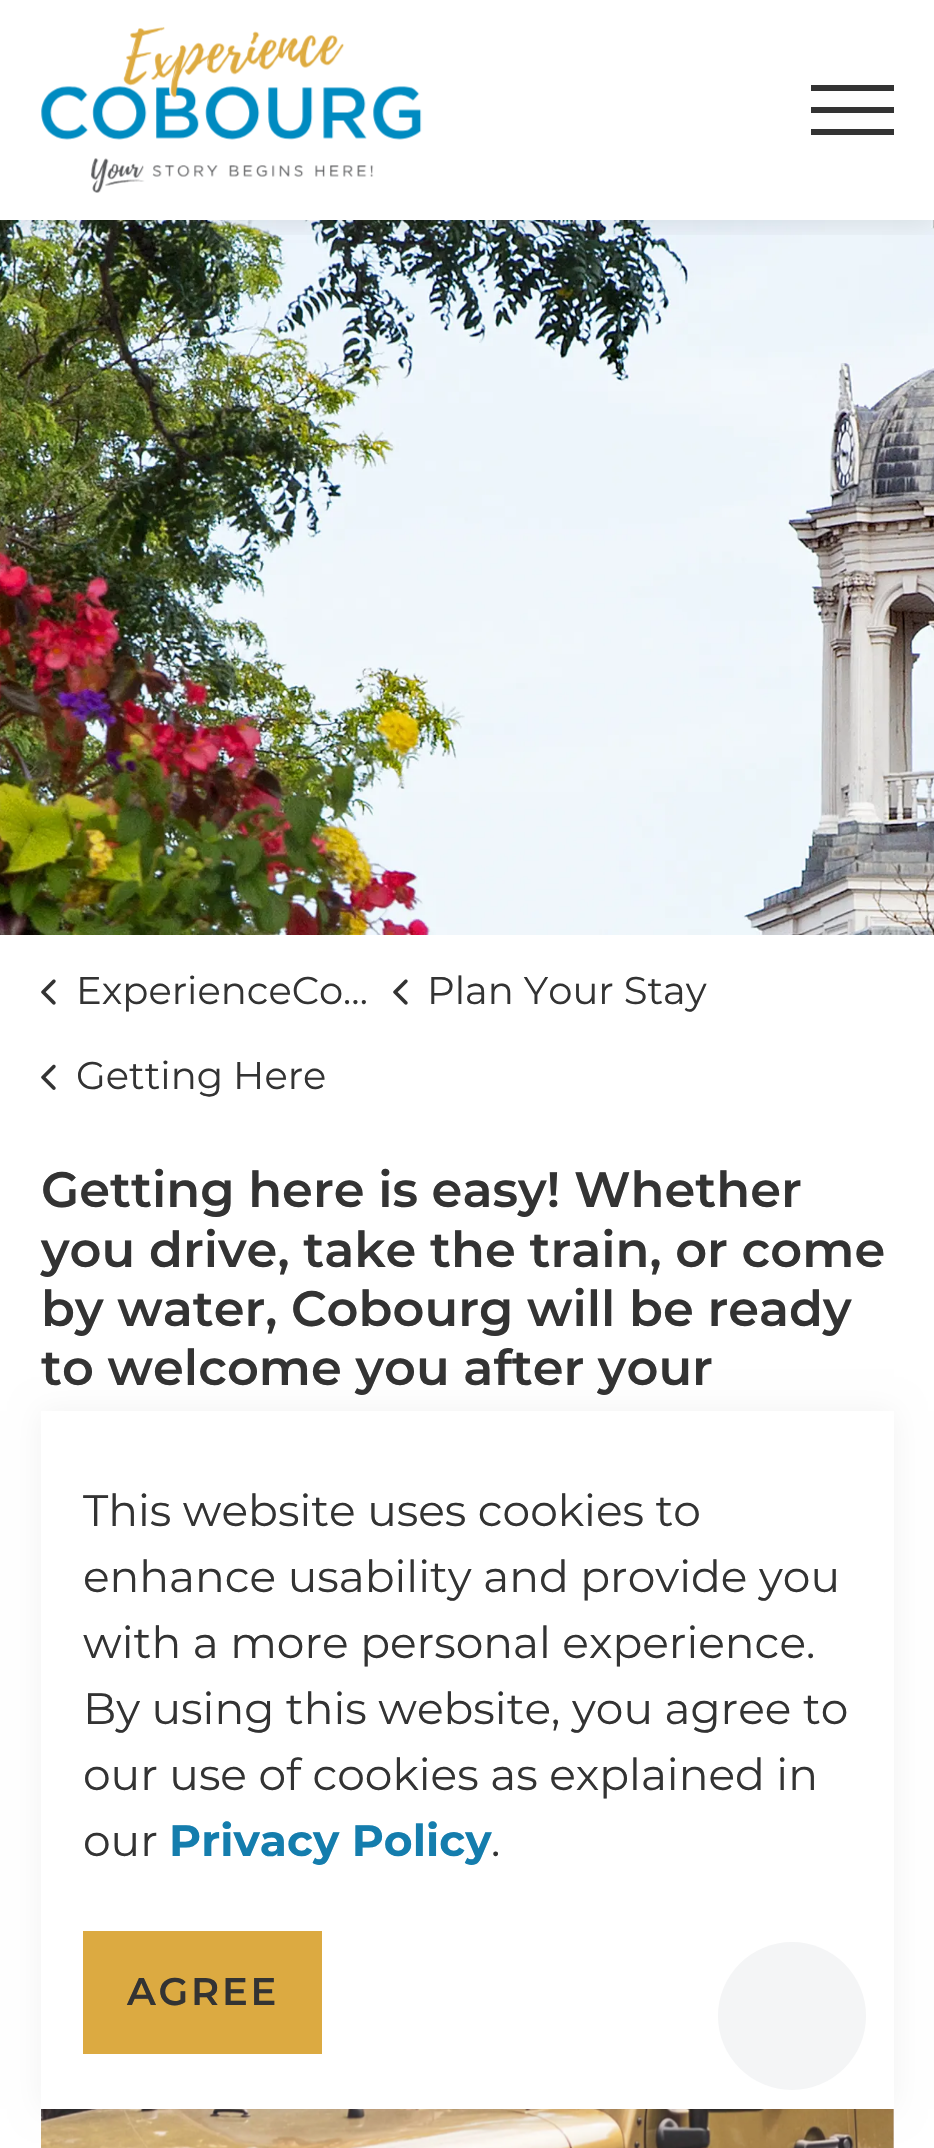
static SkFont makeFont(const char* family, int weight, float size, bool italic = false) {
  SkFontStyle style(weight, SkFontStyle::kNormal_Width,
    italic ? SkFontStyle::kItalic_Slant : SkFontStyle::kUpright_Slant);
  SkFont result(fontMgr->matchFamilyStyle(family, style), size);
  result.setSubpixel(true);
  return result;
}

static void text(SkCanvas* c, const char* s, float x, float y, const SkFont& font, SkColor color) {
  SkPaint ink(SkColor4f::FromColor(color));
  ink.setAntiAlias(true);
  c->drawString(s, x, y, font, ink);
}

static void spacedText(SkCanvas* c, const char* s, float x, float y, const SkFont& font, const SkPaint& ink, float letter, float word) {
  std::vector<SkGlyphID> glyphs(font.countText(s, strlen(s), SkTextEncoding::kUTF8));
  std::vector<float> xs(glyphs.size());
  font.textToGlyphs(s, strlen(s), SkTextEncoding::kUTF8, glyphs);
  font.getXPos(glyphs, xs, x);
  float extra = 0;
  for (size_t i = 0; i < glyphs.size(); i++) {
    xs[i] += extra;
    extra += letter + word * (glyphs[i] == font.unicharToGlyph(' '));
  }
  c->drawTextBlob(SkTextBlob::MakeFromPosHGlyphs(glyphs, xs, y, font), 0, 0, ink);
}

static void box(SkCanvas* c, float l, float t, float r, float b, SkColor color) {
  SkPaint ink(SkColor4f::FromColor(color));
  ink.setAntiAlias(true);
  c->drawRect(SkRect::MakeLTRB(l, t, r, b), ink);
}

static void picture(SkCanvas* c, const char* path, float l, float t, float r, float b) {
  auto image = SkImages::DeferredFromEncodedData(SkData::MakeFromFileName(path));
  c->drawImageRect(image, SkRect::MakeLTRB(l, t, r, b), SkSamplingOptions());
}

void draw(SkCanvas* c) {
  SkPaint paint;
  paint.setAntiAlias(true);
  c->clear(0xffffffff);
  picture(c, "img_02.png", 0, 220, 934, 935);
  c->save();
  c->clipRect(SkRect::MakeLTRB(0, 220, 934, 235));
  paint.setColor(0x1a000000);
  paint.setMaskFilter(SkMaskFilter::MakeBlur(kNormal_SkBlurStyle, 14));
  c->drawRect(SkRect::MakeLTRB(0, 3, 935, 223), paint);
  paint.setMaskFilter(nullptr);
  c->restore();
  picture(c, "img_01.png", 41, 27, 422, 193);
  box(c, 811, 107, 894, 113, 0xff333333);
  box(c, 811, 85, 894, 91, 0xff333333);
  box(c, 811, 129, 894, 135, 0xff333333);
  picture(c, "img_03.png", 41, 979, 56, 1005);
  SkFont face1 = makeFont("Montserrat", 400, 38.5f);
  text(c, "ExperienceCo…", 76, 1004, face1, 0xff333333);
  picture(c, "img_03.png", 393, 979, 408, 1005);
  text(c, "Plan Your Stay", 427, 1004, face1, 0xff333333);
  picture(c, "img_04.png", 41, 1064, 56, 1090);
  text(c, "Getting Here", 76, 1089, face1, 0xff333333);
  SkFont face2 = makeFont("Montserrat", 600, 49.5f);
  text(c, "Getting here is easy! Whether", 41, 1207, face2, 0xff333333);
  text(c, "you drive, take the train, or come", 41, 1267, face2, 0xff333333);
  text(c, "by water, Cobourg will be ready", 41, 1326, face2, 0xff333333);
  text(c, "to welcome you after your", 41, 1385, face2, 0xff333333);
  box(c, 893, 2109, 894, 2148, 0xfff2eef7);
  picture(c, "img_05.png", 41, 2109, 894, 2148);
  paint.setColor(0x0d000000);
  paint.setMaskFilter(SkMaskFilter::MakeBlur(kNormal_SkBlurStyle, 14));
  c->drawRect(SkRect::MakeLTRB(41, 1411, 894, 2109), paint);
  paint.setMaskFilter(nullptr);
  box(c, 41, 1411, 894, 2109, 0xffffffff);
  SkFont face3 = makeFont("Montserrat", 400, 44);
  text(c, "This website uses cookies to", 83, 1526, face3, 0xff333333);
  text(c, "enhance usability and provide you", 83, 1592, face3, 0xff333333);
  text(c, "with a more personal experience.", 83, 1658, face3, 0xff333333);
  text(c, "By using this website, you agree to", 83, 1724, face3, 0xff333333);
  text(c, "our use of cookies as explained in", 83, 1790, face3, 0xff333333);
  text(c, "our", 83, 1856, face3, 0xff333333);
  SkFont face4 = makeFont("Montserrat", 700, 44);
  text(c, "Privacy Policy", 169, 1856, face4, 0xff147dad);
  text(c, ".", 491, 1856, face3, 0xff333333);
  box(c, 83, 1931, 322, 2054, 0xffdcaa41);
  SkFont face5 = makeFont("Montserrat", 600, 38.5f);
  paint.setColor(0xff333333);
  spacedText(c, "AGREE", 127, 2005, face5, paint, 2.75f, 0);
  paint.setColor(0xfff4f5f6);
  c->drawCircle(792, 2016, 74, paint);
}
